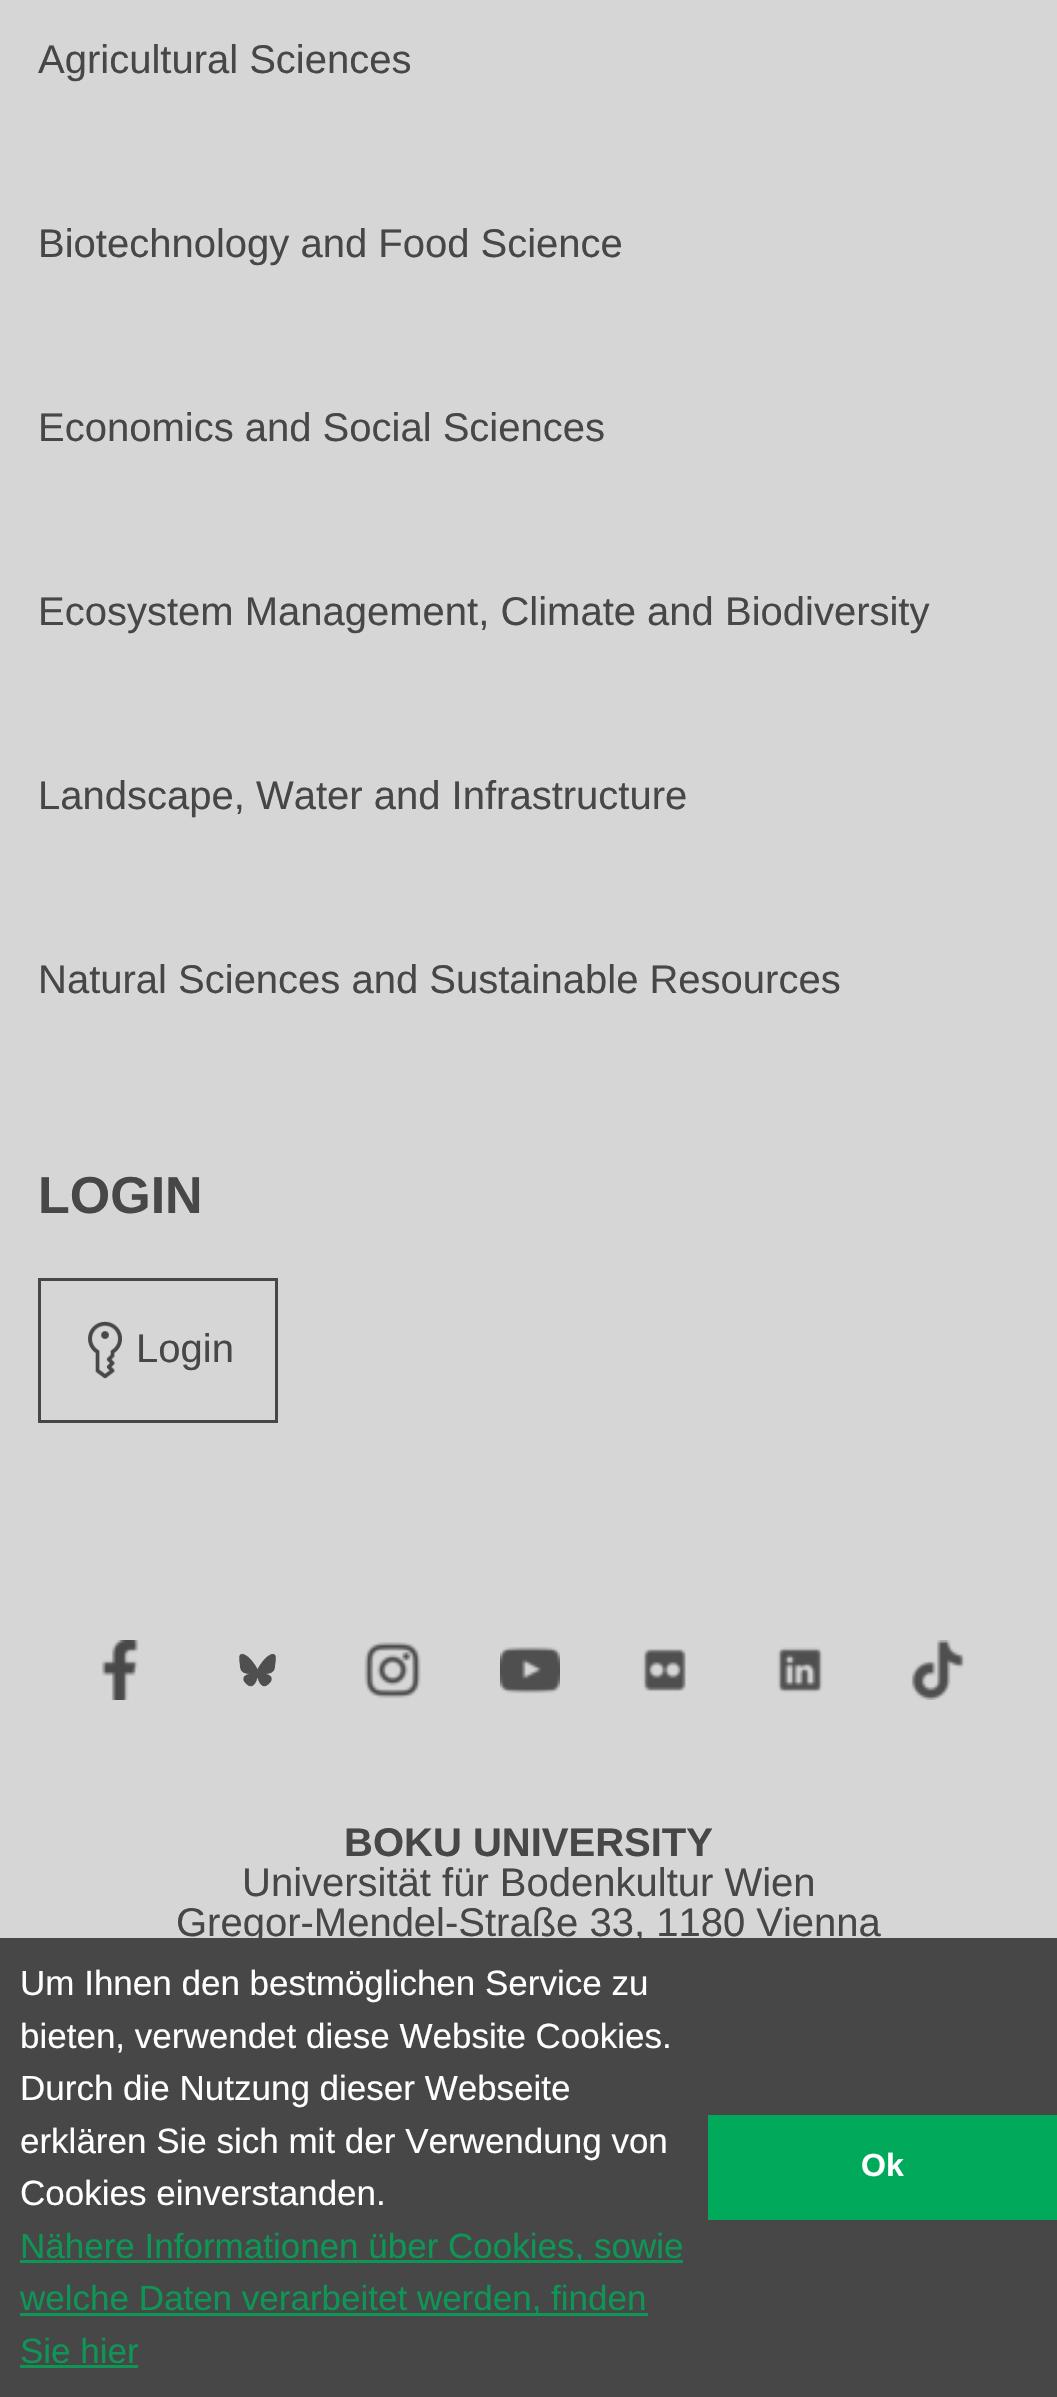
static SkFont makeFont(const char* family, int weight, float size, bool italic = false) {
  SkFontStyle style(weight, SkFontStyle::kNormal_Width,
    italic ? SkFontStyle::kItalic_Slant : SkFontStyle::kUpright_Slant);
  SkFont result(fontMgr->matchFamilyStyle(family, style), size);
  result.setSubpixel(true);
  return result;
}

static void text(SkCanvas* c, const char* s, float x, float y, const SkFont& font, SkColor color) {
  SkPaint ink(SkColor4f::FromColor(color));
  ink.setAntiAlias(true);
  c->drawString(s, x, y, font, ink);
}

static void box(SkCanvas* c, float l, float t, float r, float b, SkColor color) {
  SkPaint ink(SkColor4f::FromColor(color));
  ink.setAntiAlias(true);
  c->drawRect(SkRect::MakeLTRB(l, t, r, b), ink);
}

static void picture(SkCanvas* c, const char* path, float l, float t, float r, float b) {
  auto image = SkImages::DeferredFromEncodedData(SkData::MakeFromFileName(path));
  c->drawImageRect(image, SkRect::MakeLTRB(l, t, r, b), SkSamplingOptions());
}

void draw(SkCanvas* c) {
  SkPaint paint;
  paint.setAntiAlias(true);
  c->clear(0xffd6d6d6);
  SkFont face1 = makeFont("Liberation Sans", 400, 40);
  text(c, "Agricultural Sciences", 38, 73, face1, 0xff474747);
  text(c, "Biotechnology and Food Science", 38, 257, face1, 0xff474747);
  text(c, "Economics and Social Sciences", 38, 441, face1, 0xff474747);
  text(c, "Ecosystem Management, Climate and Biodiversity", 38, 625, face1, 0xff474747);
  text(c, "Landscape, Water and Infrastructure", 38, 809, face1, 0xff474747);
  text(c, "Natural Sciences and Sustainable Resources", 38, 993, face1, 0xff474747);
  SkFont face2 = makeFont("Liberation Sans", 700, 52);
  text(c, "LOGIN", 38, 1213, face2, 0xff474747);
  paint.setStyle(SkPaint::kStroke_Style);
  paint.setStrokeWidth(3);
  paint.setColor(0xff474747);
  c->drawRect(SkRect::MakeLTRB(39.5f, 1279.5f, 276.5f, 1421.5f), paint);
  picture(c, "img_01.png", 88, 1321, 122, 1379);
  text(c, "Login", 136, 1362, face1, 0xff474747);
  picture(c, "img_02.png", 101, 1640, 139, 1700);
  picture(c, "img_03.png", 239, 1653, 276, 1687);
  picture(c, "img_04.png", 364, 1642, 421, 1699);
  picture(c, "img_05.png", 500, 1646, 560, 1694);
  picture(c, "img_06.png", 642, 1648, 686, 1692);
  picture(c, "img_07.png", 777, 1647, 823, 1693);
  picture(c, "img_08.png", 911, 1640, 965, 1700);
  SkFont face3 = makeFont("Liberation Sans", 700, 40);
  text(c, "BOKU UNIVERSITY", 344, 1856, face3, 0xff474747);
  text(c, "Universität für Bodenkultur Wien", 242, 1896, face1, 0xff474747);
  text(c, "Gregor-Mendel-Straße 33, 1180 Vienna", 176, 1936, face1, 0xff474747);
  box(c, 0, 1938, 1057, 2397, 0xff474747);
  SkFont face4 = makeFont("Liberation Sans", 400, 35);
  text(c, "Um Ihnen den bestmöglichen Service zu", 20, 1995, face4, 0xffffffff);
  text(c, "bieten, verwendet diese Website Cookies.", 20, 2048, face4, 0xffffffff);
  text(c, "Durch die Nutzung dieser Webseite", 20, 2100, face4, 0xffffffff);
  text(c, "erklären Sie sich mit der Verwendung von", 20, 2153, face4, 0xffffffff);
  text(c, "Cookies einverstanden.", 20, 2205, face4, 0xffffffff);
  box(c, 20, 2260, 683, 2263, 0xff0e9656);
  text(c, "Nähere Informationen über Cookies, sowie", 20, 2258, face4, 0xff0e9656);
  box(c, 20, 2313, 648, 2316, 0xff0e9656);
  text(c, "welche Daten verarbeitet werden, finden", 20, 2310, face4, 0xff0e9656);
  text(c, "Sie hier", 20, 2363, face4, 0xff0e9656);
  box(c, 20, 2365, 138, 2368, 0xff0e9656);
  box(c, 708, 2115, 1057, 2220, 0xff00aa5a);
  SkFont face5 = makeFont("Liberation Sans", 700, 32);
  text(c, "Ok", 861, 2176, face5, 0xffffffff);
}
